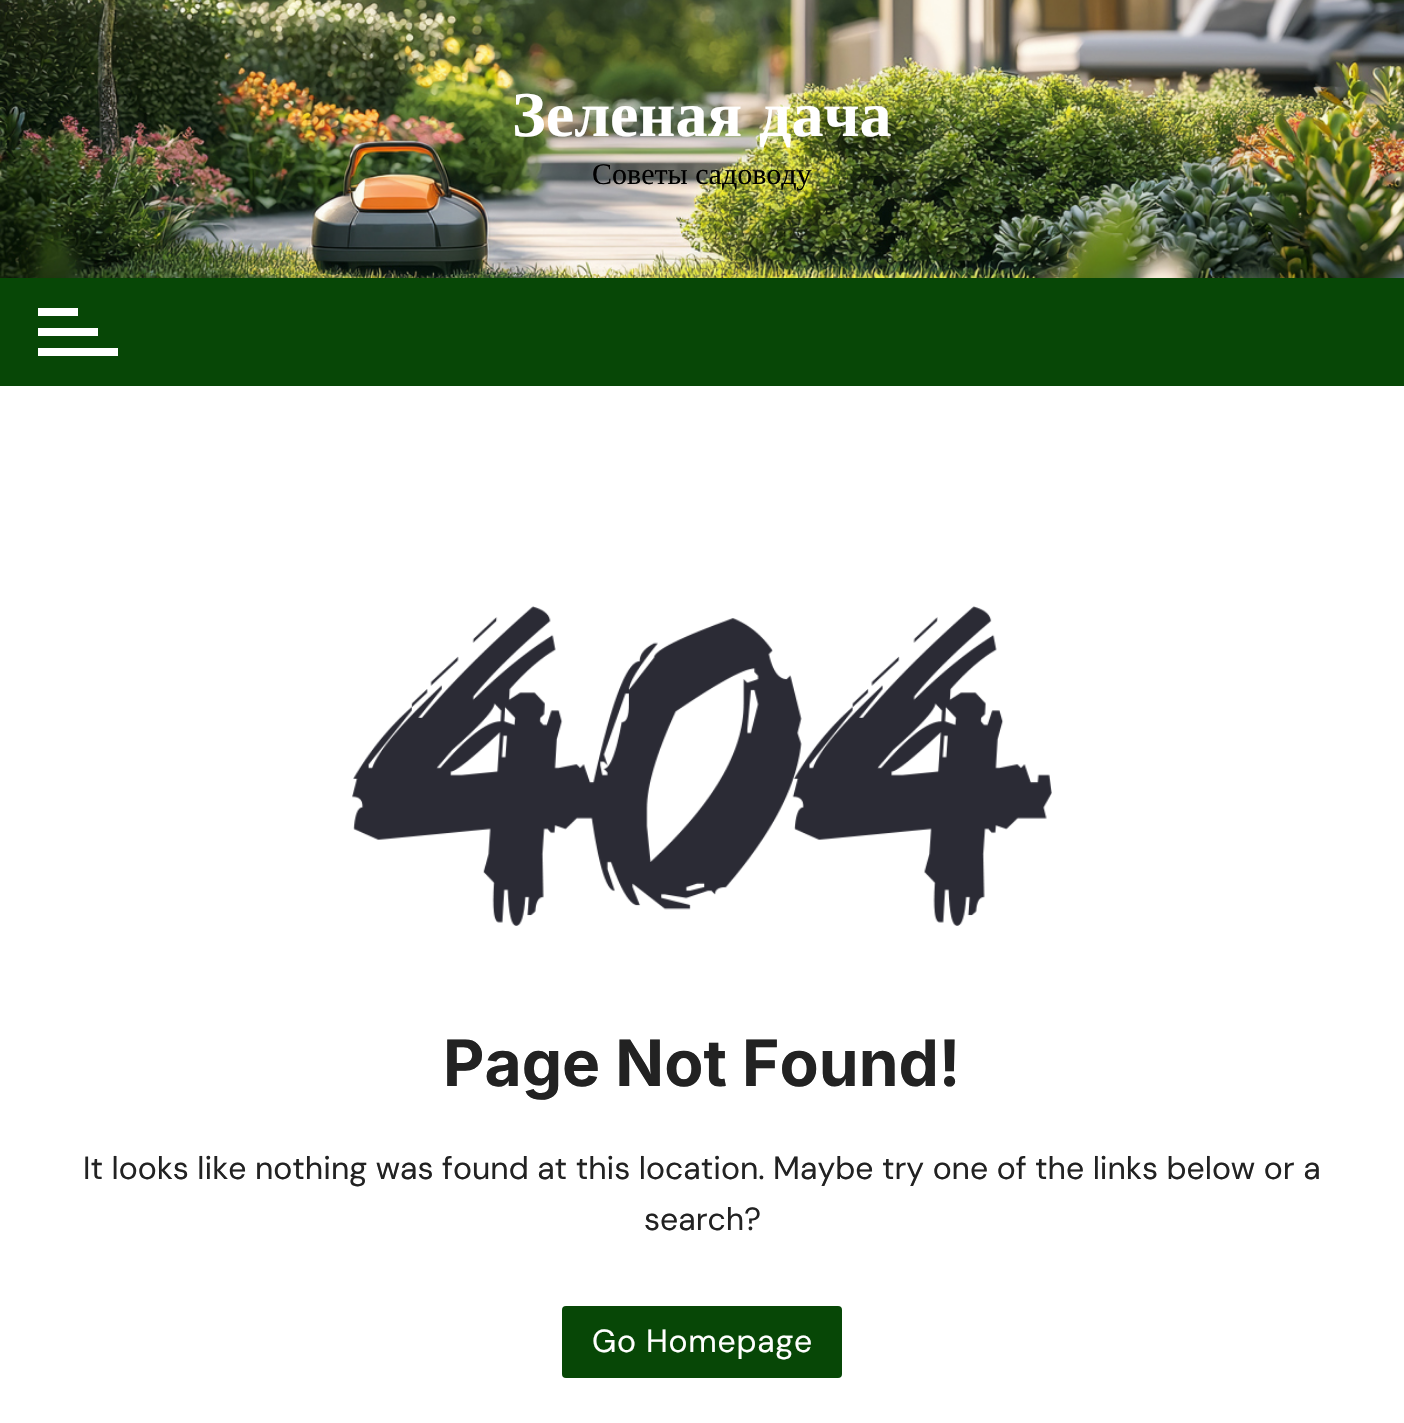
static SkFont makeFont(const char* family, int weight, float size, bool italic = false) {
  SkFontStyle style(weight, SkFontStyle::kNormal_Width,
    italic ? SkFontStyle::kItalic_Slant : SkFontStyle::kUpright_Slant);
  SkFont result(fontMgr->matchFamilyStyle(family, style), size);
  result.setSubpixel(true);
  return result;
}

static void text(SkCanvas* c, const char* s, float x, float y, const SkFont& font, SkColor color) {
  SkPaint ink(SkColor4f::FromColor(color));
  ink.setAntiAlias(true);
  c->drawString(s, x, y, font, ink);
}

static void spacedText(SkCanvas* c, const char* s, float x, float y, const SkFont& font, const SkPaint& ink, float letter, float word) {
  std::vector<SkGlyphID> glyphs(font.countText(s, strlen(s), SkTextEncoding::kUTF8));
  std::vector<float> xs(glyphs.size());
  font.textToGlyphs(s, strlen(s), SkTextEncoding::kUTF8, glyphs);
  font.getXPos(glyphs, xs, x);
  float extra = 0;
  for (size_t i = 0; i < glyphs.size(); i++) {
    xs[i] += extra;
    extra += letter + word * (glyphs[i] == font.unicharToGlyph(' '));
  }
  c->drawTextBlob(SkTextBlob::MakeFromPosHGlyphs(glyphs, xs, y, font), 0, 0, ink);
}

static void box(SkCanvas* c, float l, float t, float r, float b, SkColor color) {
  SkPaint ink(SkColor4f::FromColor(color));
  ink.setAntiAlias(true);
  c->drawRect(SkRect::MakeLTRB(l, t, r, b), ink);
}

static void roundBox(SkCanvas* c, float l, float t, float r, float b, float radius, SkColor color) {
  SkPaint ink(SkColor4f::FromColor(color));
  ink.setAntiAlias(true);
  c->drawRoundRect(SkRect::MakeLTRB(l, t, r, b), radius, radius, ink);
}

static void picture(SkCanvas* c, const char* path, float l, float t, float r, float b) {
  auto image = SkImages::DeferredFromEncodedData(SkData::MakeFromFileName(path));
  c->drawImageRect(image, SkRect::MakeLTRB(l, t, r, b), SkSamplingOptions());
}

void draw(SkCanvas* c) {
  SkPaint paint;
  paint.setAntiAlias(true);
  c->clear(0xffffffff);
  picture(c, "img_01.png", 0, 0, 1404, 278);
  SkFont face1 = makeFont("Liberation Serif", 700, 64);
  paint.setColor(0xffffffff);
  spacedText(c, "Зеленая дача", 512, 136, face1, paint, 0, 1);
  SkFont face2 = makeFont("Liberation Serif", 400, 30);
  text(c, "Советы садоводу", 592, 184, face2, 0xff000000);
  box(c, 0, 278, 1404, 386, 0xff074706);
  box(c, 38, 308, 78, 316, 0xffffffff);
  box(c, 38, 328, 98, 336, 0xffffffff);
  box(c, 38, 348, 118, 356, 0xffffffff);
  picture(c, "img_02.png", 352, 606, 1052, 926);
  SkFont face3 = makeFont("Inter", 700, 64);
  text(c, "Page Not Found!", 443, 1086, face3, 0xff222222);
  SkFont face4 = makeFont("DM Sans", 400, 32);
  text(c, "It looks like nothing was found at this location. Maybe try one of the links below or a", 83, 1179, face4, 0xff222222);
  text(c, "search?", 644, 1230, face4, 0xff222222);
  roundBox(c, 562, 1306, 842, 1378, 4, 0xff074706);
  spacedText(c, "Go Homepage", 592, 1352, face4, paint, 0.75f, 0);
}
